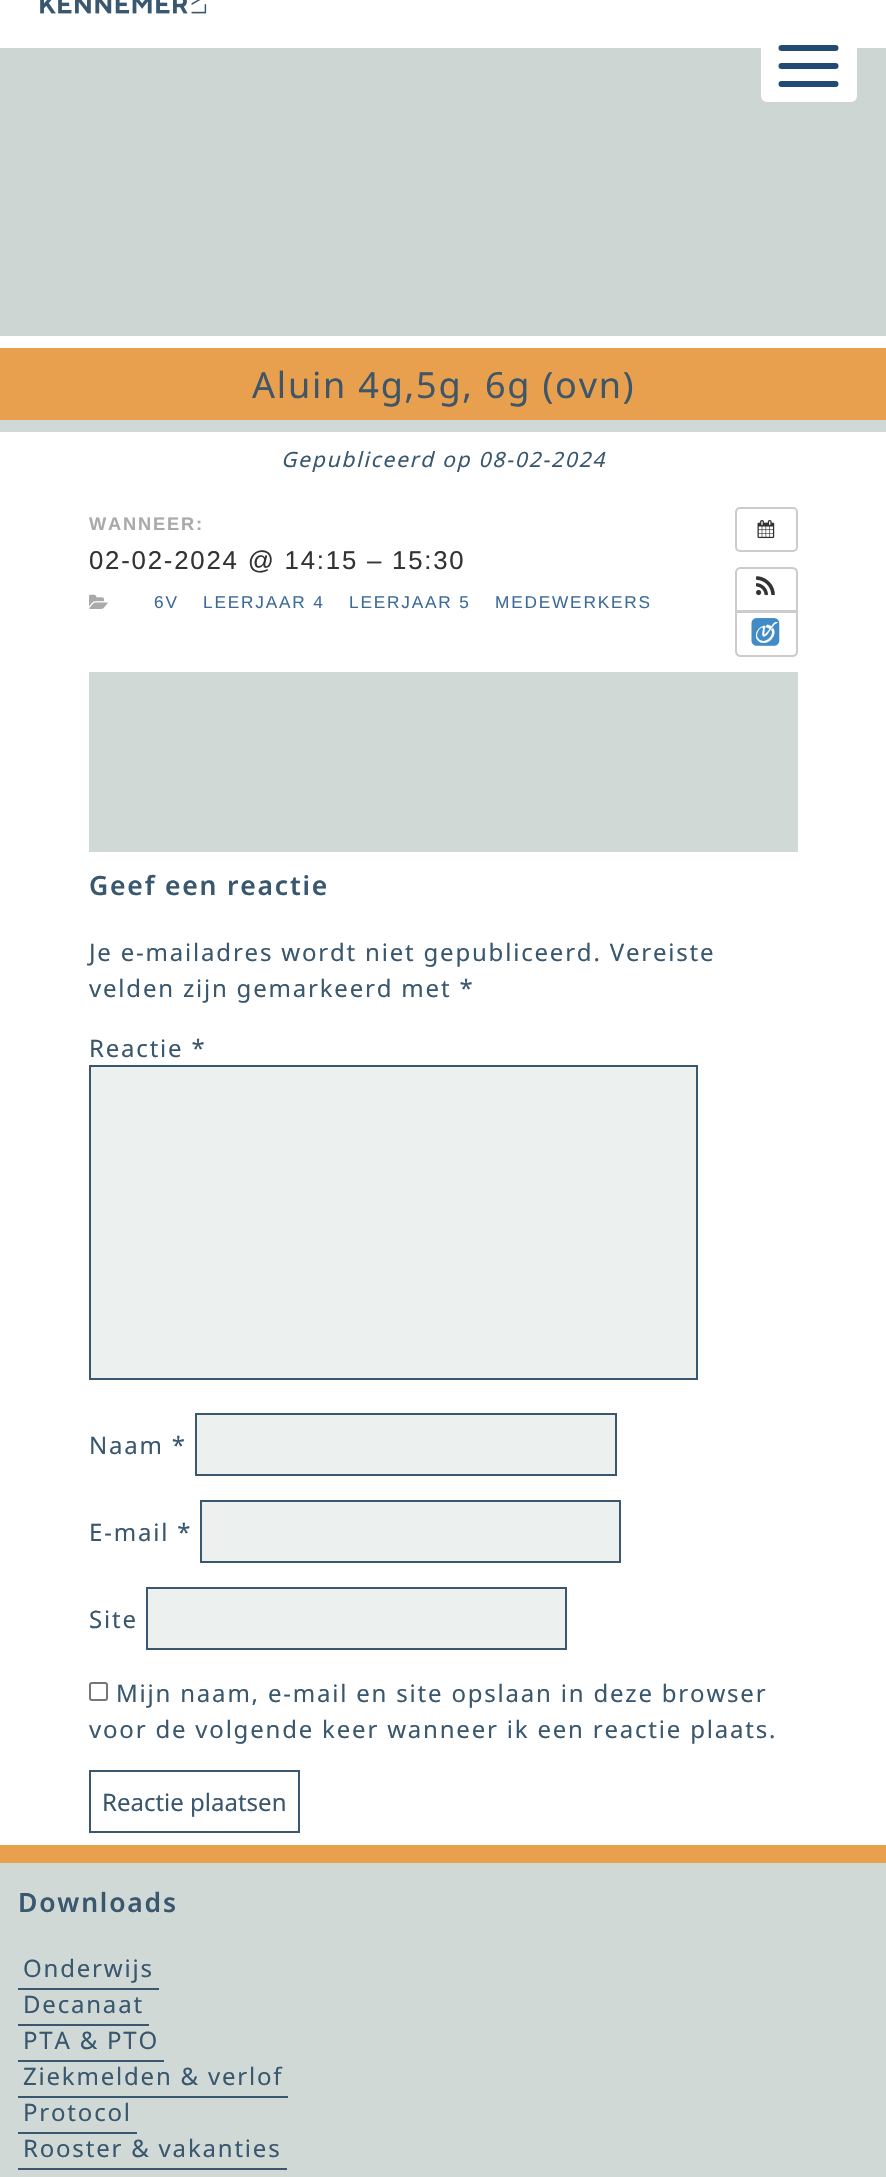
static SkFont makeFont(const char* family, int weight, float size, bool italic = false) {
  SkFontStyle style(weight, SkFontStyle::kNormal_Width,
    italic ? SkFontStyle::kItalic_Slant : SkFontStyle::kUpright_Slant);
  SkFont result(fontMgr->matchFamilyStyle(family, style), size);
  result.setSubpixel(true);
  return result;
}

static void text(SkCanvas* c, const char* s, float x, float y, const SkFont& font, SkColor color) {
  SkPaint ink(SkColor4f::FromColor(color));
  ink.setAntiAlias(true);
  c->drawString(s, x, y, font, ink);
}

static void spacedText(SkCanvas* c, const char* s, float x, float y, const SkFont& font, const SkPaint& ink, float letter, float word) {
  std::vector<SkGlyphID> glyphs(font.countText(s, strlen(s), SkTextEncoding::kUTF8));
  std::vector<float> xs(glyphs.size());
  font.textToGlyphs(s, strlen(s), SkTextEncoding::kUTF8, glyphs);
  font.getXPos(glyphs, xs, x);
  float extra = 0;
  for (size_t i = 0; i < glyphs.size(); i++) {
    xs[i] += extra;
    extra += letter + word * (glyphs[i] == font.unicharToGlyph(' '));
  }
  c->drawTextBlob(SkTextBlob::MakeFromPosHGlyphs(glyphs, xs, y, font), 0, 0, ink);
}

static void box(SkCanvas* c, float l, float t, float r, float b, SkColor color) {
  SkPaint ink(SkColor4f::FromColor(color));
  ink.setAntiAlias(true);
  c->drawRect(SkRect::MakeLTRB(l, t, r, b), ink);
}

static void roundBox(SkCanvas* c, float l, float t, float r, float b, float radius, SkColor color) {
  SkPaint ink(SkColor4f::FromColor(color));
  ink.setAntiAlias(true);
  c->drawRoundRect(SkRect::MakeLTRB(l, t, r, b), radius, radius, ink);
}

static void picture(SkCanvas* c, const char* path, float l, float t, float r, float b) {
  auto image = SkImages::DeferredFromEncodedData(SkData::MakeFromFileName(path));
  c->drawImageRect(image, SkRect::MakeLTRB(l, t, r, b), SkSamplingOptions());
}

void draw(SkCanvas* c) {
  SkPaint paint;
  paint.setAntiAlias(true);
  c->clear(0xffffffff);
  picture(c, "img_01.png", 40, 0, 207, 14);
  box(c, 0, 48, 886, 336, 0xffced6d3);
  roundBox(c, 761, 30, 857, 102, 6, 0xffffffff);
  paint.setStyle(SkPaint::kStroke_Style);
  paint.setStrokeWidth(6);
  paint.setStrokeCap(SkPaint::kRound_Cap);
  paint.setStrokeJoin(SkPaint::kRound_Join);
  paint.setColor(0xff224b74);
  c->drawPath(SkPathBuilder().moveTo(781.5f, 66).lineTo(835.5f, 66).moveTo(781.5f, 48).lineTo(835.5f, 48).moveTo(781.5f, 84).lineTo(835.5f, 84).detach(), paint);
  box(c, 0, 348, 886, 420, 0xffe9a04e);
  SkFont face1 = makeFont("Noto Sans", 400, 36);
  paint.setStyle(SkPaint::kFill_Style);
  paint.setColor(0xff3e5668);
  spacedText(c, "Aluin 4g,5g, 6g (ovn)", 252, 398, face1, paint, 1.8f, 0);
  box(c, 0, 420, 886, 432, 0xffd0d9d6);
  SkFont face2 = makeFont("Noto Sans", 400, 21, true);
  paint.setColor(0xff39576e);
  spacedText(c, "Gepubliceerd op 08-02-2024", 281, 467, face2, paint, 1.8f, 0);
  SkFont face3 = makeFont("Liberation Sans", 700, 18.25f);
  paint.setColor(0xffaaaaaa);
  spacedText(c, "WANNEER:", 89, 530, face3, paint, 1.8f, 0);
  SkFont face4 = makeFont("Liberation Sans", 400, 25.75f);
  paint.setColor(0xff333333);
  spacedText(c, "02-02-2024 @ 14:15 – 15:30", 89, 569, face4, paint, 1.8f, 0);
  picture(c, "img_02.png", 89, 594, 108, 609);
  SkFont face5 = makeFont("Liberation Sans", 400, 17.25f);
  paint.setColor(0xff3d6b99);
  spacedText(c, "6V", 154, 608, face5, paint, 1.8f, 0);
  spacedText(c, "LEERJAAR 4", 203, 608, face5, paint, 1.8f, 0);
  spacedText(c, "LEERJAAR 5", 349, 608, face5, paint, 1.8f, 0);
  spacedText(c, "MEDEWERKERS", 495, 608, face5, paint, 1.8f, 0);
  paint.setStyle(SkPaint::kStroke_Style);
  paint.setStrokeWidth(2);
  paint.setStrokeCap(SkPaint::kButt_Cap);
  paint.setStrokeJoin(SkPaint::kMiter_Join);
  paint.setColor(0xffcccccc);
  c->drawRoundRect(SkRect::MakeLTRB(736, 508, 797, 551), 4, 4, paint);
  picture(c, "img_03.png", 757, 520, 775, 539);
  c->drawPath(SkPathBuilder().moveTo(740, 568).lineTo(792, 568).cubicTo(795, 568, 797, 570, 797, 573).lineTo(797, 611).lineTo(736, 611).lineTo(736, 572).cubicTo(736, 570, 738, 568, 740, 568).close().detach(), paint);
  picture(c, "img_04.png", 756, 576, 775, 596);
  paint.setStyle(SkPaint::kFill_Style);
  paint.setColor(0xffffffff);
  c->drawPath(SkPathBuilder().moveTo(736, 612).lineTo(797, 612).lineTo(797, 652).cubicTo(797, 654, 795, 656, 793, 656).lineTo(741, 656).cubicTo(738, 656, 736, 654, 736, 651).close().detach(), paint);
  paint.setStyle(SkPaint::kStroke_Style);
  paint.setColor(0xffcccccc);
  c->drawPath(SkPathBuilder().moveTo(736, 612).lineTo(797, 612).lineTo(797, 652).cubicTo(797, 654, 795, 656, 793, 656).lineTo(741, 656).cubicTo(738, 656, 736, 654, 736, 651).close().detach(), paint);
  picture(c, "img_05.png", 751, 618, 780, 646);
  SkFont face6 = makeFont("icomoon", 400, 22);
  paint.setStyle(SkPaint::kFill_Style);
  paint.setColor(0xffffffff);
  spacedText(c, "!", 756, 642, face6, paint, 1.8f, 0);
  box(c, 89, 672, 798, 852, 0xffd0d9d6);
  SkFont face7 = makeFont("Noto Sans", 600, 26.5f);
  paint.setColor(0xff39576e);
  spacedText(c, "Geef een reactie", 89, 895, face7, paint, 1.8f, 0);
  SkFont face8 = makeFont("Noto Sans", 400, 24);
  spacedText(c, "Je e-mailadres wordt niet gepubliceerd. Vereiste", 89, 961, face8, paint, 1.8f, 0);
  spacedText(c, "velden zijn gemarkeerd met *", 89, 997, face8, paint, 1.8f, 0);
  spacedText(c, "Reactie *", 89, 1057, face8, paint, 1.8f, 0);
  paint.setColor(0xffecf0ef);
  c->drawRect(SkRect::MakeLTRB(90, 1066, 697, 1379), paint);
  paint.setStyle(SkPaint::kStroke_Style);
  paint.setColor(0xff39576e);
  c->drawRect(SkRect::MakeLTRB(90, 1066, 697, 1379), paint);
  paint.setStyle(SkPaint::kFill_Style);
  spacedText(c, "Naam *", 89, 1454, face8, paint, 1.8f, 0);
  paint.setColor(0xffecf0ef);
  c->drawRect(SkRect::MakeLTRB(196, 1414, 616, 1475), paint);
  paint.setStyle(SkPaint::kStroke_Style);
  paint.setColor(0xff39576e);
  c->drawRect(SkRect::MakeLTRB(196, 1414, 616, 1475), paint);
  paint.setStyle(SkPaint::kFill_Style);
  spacedText(c, "E-mail *", 89, 1541, face8, paint, 1.8f, 0);
  paint.setColor(0xffecf0ef);
  c->drawRect(SkRect::MakeLTRB(201, 1501, 620, 1562), paint);
  paint.setStyle(SkPaint::kStroke_Style);
  paint.setColor(0xff39576e);
  c->drawRect(SkRect::MakeLTRB(201, 1501, 620, 1562), paint);
  paint.setStyle(SkPaint::kFill_Style);
  spacedText(c, "Site", 89, 1628, face8, paint, 1.8f, 0);
  paint.setColor(0xffecf0ef);
  c->drawRect(SkRect::MakeLTRB(147, 1588, 566, 1649), paint);
  paint.setStyle(SkPaint::kStroke_Style);
  paint.setColor(0xff39576e);
  c->drawRect(SkRect::MakeLTRB(147, 1588, 566, 1649), paint);
  paint.setColor(0xff767676);
  c->drawRoundRect(SkRect::MakeLTRB(90, 1683, 107, 1700), 2, 2, paint);
  paint.setStyle(SkPaint::kFill_Style);
  paint.setColor(0xff39576e);
  spacedText(c, "Mijn naam, e-mail en site opslaan in deze browser", 116, 1702, face8, paint, 1.8f, 0);
  spacedText(c, "voor de volgende keer wanneer ik een reactie plaats.", 89, 1738, face8, paint, 1.8f, 0);
  paint.setStyle(SkPaint::kStroke_Style);
  c->drawRect(SkRect::MakeLTRB(90, 1771, 299, 1832), paint);
  text(c, "Reactie plaatsen", 102, 1811, face8, 0xff39576e);
  box(c, 0, 1863, 886, 2177, 0xffd0d9d6);
  box(c, 0, 1845, 886, 1863, 0xffe9a04e);
  paint.setStyle(SkPaint::kFill_Style);
  spacedText(c, "Downloads", 18, 1912, face7, paint, 1.8f, 0);
  spacedText(c, "Onderwijs", 23, 1977, face8, paint, 1.8f, 0);
  box(c, 18, 1988, 159, 1990, 0xff39576e);
  spacedText(c, "Decanaat", 23, 2013, face8, paint, 1.8f, 0);
  box(c, 18, 2024, 149, 2026, 0xff39576e);
  spacedText(c, "PTA & PTO", 23, 2049, face8, paint, 1.8f, 0);
  box(c, 18, 2060, 164, 2062, 0xff39576e);
  spacedText(c, "Ziekmelden & verlof", 23, 2085, face8, paint, 1.8f, 0);
  box(c, 18, 2096, 288, 2098, 0xff39576e);
  spacedText(c, "Protocol", 23, 2121, face8, paint, 1.8f, 0);
  box(c, 18, 2132, 137, 2134, 0xff39576e);
  spacedText(c, "Rooster & vakanties", 23, 2157, face8, paint, 1.8f, 0);
  box(c, 18, 2168, 287, 2170, 0xff39576e);
}
